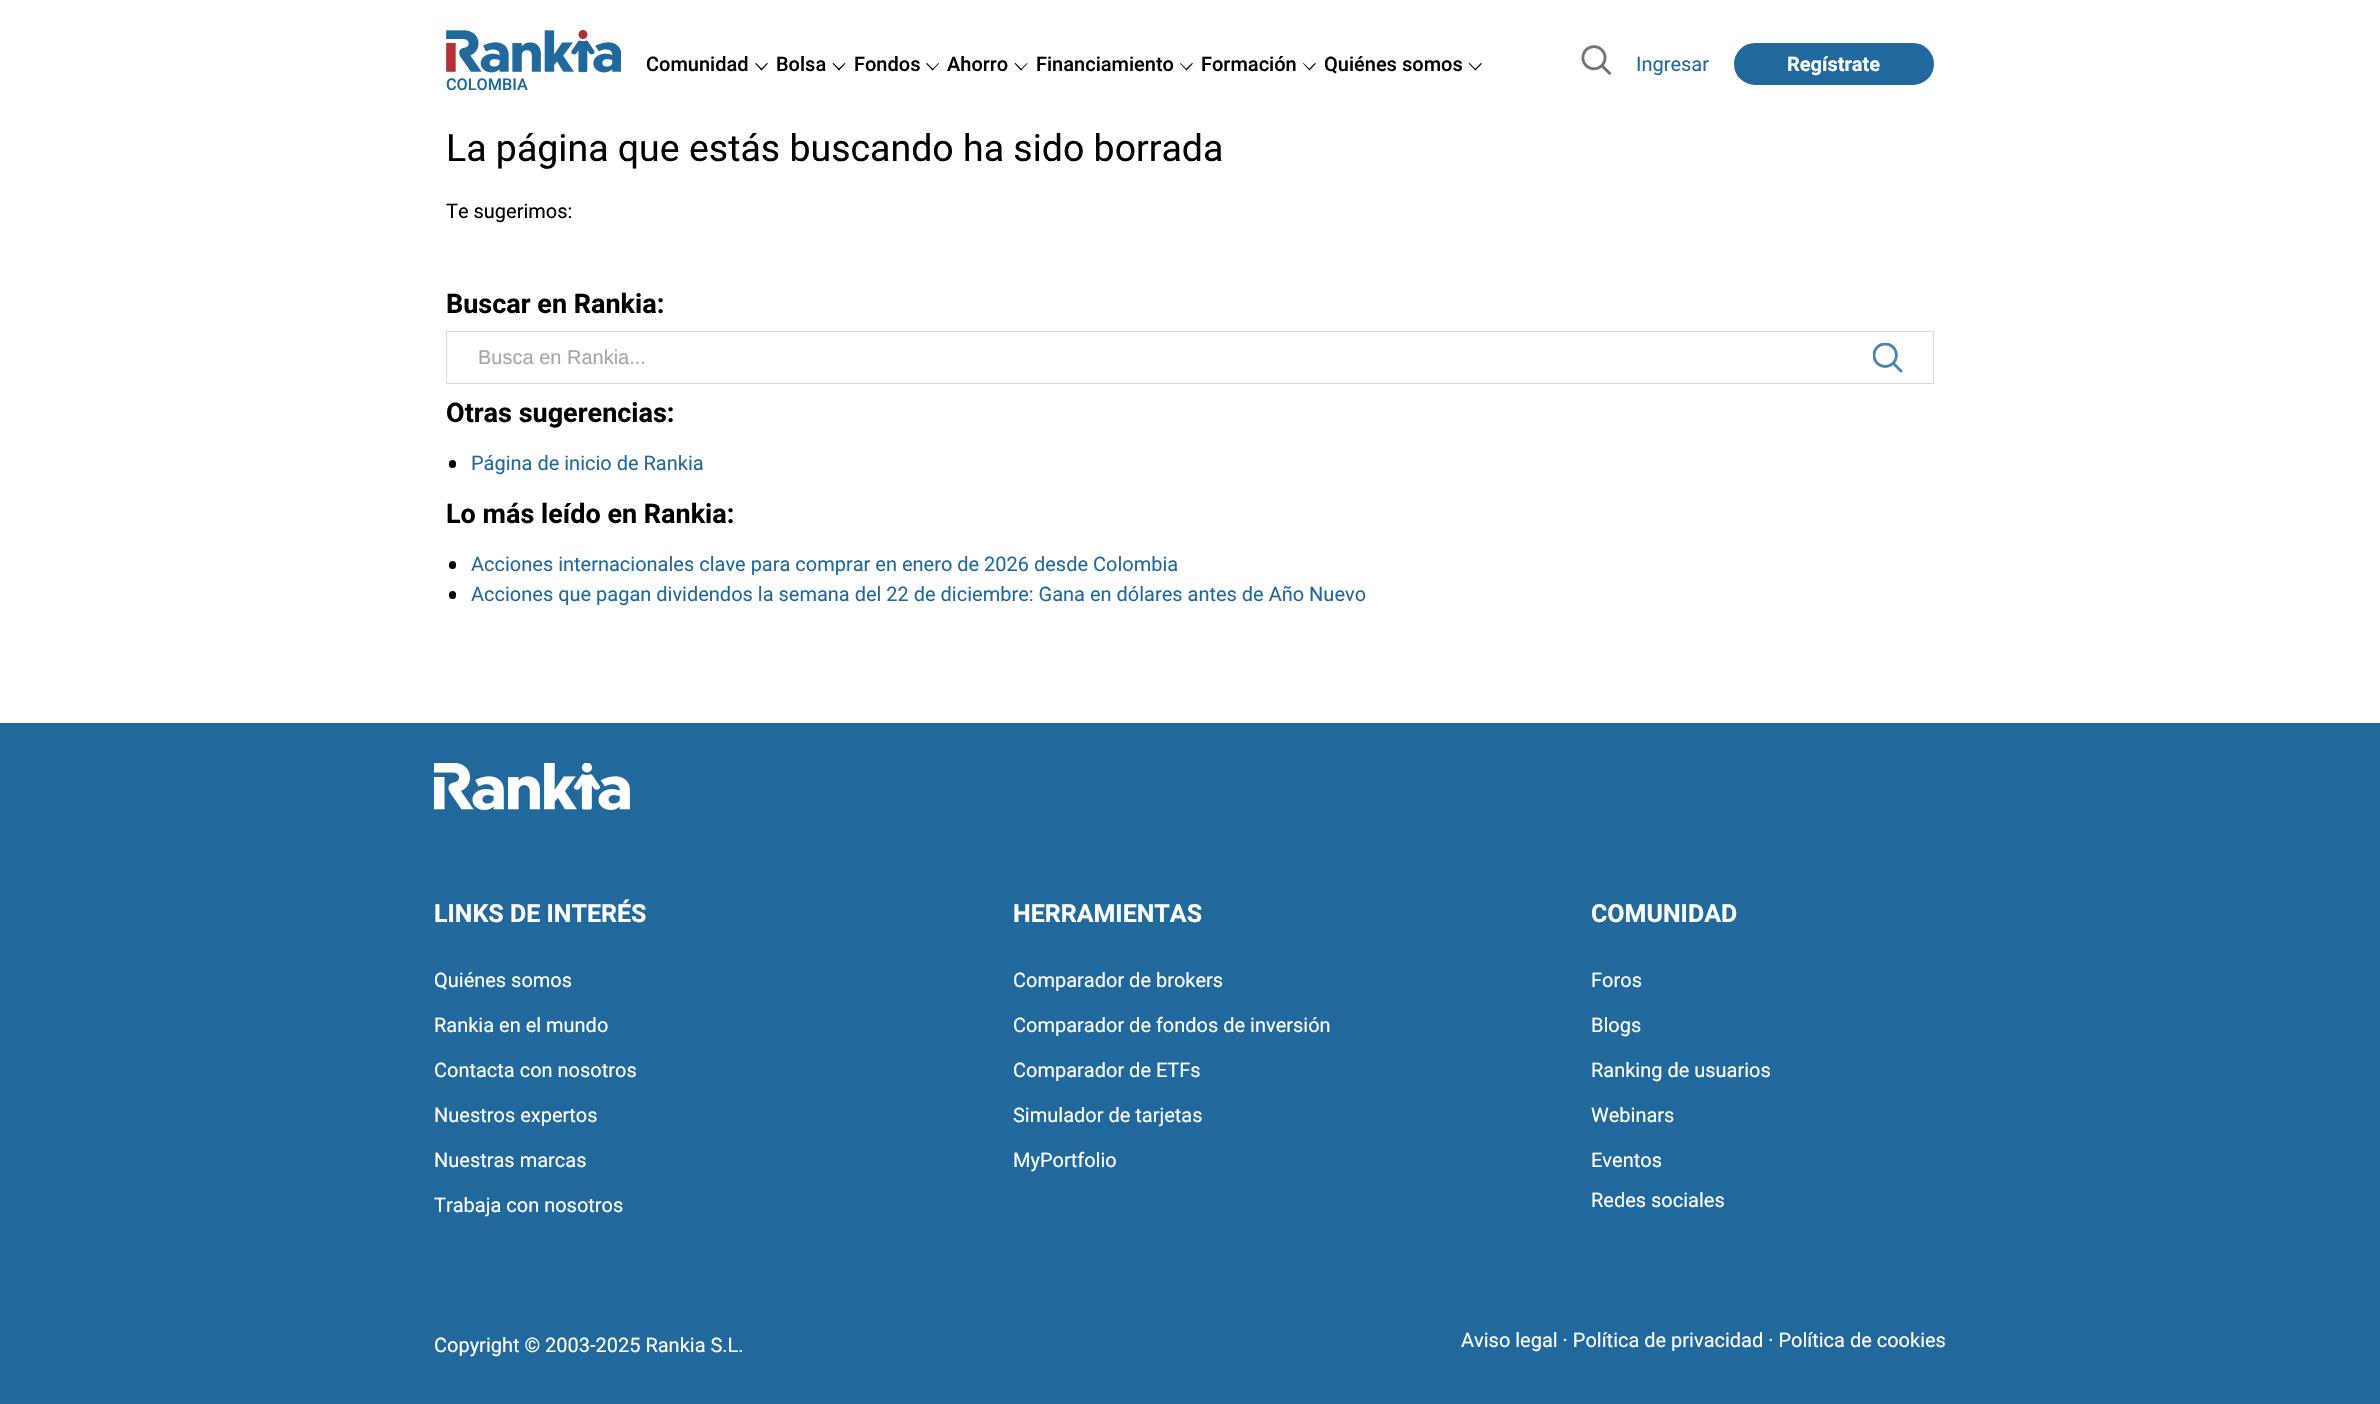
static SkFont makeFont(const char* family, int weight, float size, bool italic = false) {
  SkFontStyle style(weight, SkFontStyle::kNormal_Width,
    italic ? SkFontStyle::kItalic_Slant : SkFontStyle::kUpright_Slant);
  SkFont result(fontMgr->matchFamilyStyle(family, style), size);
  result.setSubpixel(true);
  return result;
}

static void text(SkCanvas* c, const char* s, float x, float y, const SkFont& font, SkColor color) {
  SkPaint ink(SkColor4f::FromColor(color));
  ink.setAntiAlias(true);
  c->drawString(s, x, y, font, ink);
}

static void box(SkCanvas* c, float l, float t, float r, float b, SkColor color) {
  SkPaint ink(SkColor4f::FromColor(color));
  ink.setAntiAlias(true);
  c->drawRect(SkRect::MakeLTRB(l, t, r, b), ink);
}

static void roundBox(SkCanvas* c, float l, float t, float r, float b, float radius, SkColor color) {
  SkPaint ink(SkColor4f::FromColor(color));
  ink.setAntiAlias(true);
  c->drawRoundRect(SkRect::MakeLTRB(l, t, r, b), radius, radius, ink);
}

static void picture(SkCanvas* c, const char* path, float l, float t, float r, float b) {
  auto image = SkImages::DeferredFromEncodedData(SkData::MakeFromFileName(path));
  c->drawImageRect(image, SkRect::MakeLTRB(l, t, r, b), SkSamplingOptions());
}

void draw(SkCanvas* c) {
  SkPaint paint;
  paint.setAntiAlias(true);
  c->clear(0xffffffff);
  SkFont face1 = makeFont("Roboto", 500, 20);
  text(c, "Comunidad", 646, 71, face1, 0xff000000);
  paint.setColor(0xff000000);
  c->drawPath(SkPathBuilder().moveTo(767, 63).lineTo(768, 63.5f).lineTo(761.5f, 70.5f).lineTo(760.5f, 69.5f).close().detach(), paint);
  c->drawPath(SkPathBuilder().moveTo(756, 63).lineTo(762.5f, 69.5f).lineTo(761.5f, 70.5f).lineTo(755, 63.5f).close().detach(), paint);
  text(c, "Bolsa", 776, 71, face1, 0xff000000);
  c->drawPath(SkPathBuilder().moveTo(844.5f, 63).lineTo(845.5f, 63.5f).lineTo(839, 70.5f).lineTo(838, 69.5f).close().detach(), paint);
  c->drawPath(SkPathBuilder().moveTo(833.5f, 63).lineTo(840, 69.5f).lineTo(839, 70.5f).lineTo(832.5f, 63.5f).close().detach(), paint);
  text(c, "Fondos", 854, 71, face1, 0xff000000);
  c->drawPath(SkPathBuilder().moveTo(938.5f, 63).lineTo(939, 63.5f).lineTo(932.5f, 70.5f).lineTo(932, 69.5f).close().detach(), paint);
  c->drawPath(SkPathBuilder().moveTo(927, 63).lineTo(933.5f, 69.5f).lineTo(932.5f, 70.5f).lineTo(926, 63.5f).close().detach(), paint);
  text(c, "Ahorro", 947, 71, face1, 0xff000000);
  c->drawPath(SkPathBuilder().moveTo(1027, 63).lineTo(1027.5f, 63.5f).lineTo(1021, 70.5f).lineTo(1020.5f, 69.5f).close().detach(), paint);
  c->drawPath(SkPathBuilder().moveTo(1015.5f, 63).lineTo(1022, 69.5f).lineTo(1021, 70.5f).lineTo(1014.5f, 63.5f).close().detach(), paint);
  text(c, "Financiamiento", 1036, 71, face1, 0xff000000);
  c->drawPath(SkPathBuilder().moveTo(1192, 63).lineTo(1193, 63.5f).lineTo(1186.5f, 70.5f).lineTo(1185.5f, 69.5f).close().detach(), paint);
  c->drawPath(SkPathBuilder().moveTo(1180.5f, 63).lineTo(1187, 69.5f).lineTo(1186.5f, 70.5f).lineTo(1180, 63.5f).close().detach(), paint);
  text(c, "Formación", 1201, 71, face1, 0xff000000);
  c->drawPath(SkPathBuilder().moveTo(1315, 63).lineTo(1316, 63.5f).lineTo(1309.5f, 70.5f).lineTo(1308.5f, 69.5f).close().detach(), paint);
  c->drawPath(SkPathBuilder().moveTo(1303.5f, 63).lineTo(1310, 69.5f).lineTo(1309.5f, 70.5f).lineTo(1303, 63.5f).close().detach(), paint);
  text(c, "Quiénes somos", 1324, 71, face1, 0xff000000);
  c->drawPath(SkPathBuilder().moveTo(1481, 63).lineTo(1482, 63.5f).lineTo(1475.5f, 70.5f).lineTo(1474.5f, 69.5f).close().detach(), paint);
  c->drawPath(SkPathBuilder().moveTo(1469.5f, 63).lineTo(1476, 69.5f).lineTo(1475.5f, 70.5f).lineTo(1468.5f, 63.5f).close().detach(), paint);
  picture(c, "img_01.png", 446, 30, 621, 73);
  SkFont face2 = makeFont("Roboto", 500, 16.25f);
  text(c, "COLOMBIA", 446, 90, face2, 0xff21689d);
  picture(c, "img_02.png", 1581, 45, 1611, 75);
  SkFont face3 = makeFont("Roboto", 400, 20);
  text(c, "Ingresar", 1636, 71, face3, 0xff21689d);
  paint.setColor(0xff21689d);
  c->drawRoundRect(SkRect::MakeLTRB(1735.5f, 44.5f, 1932.5f, 83.5f), 19.5f, 19.5f, paint);
  paint.setStyle(SkPaint::kStroke_Style);
  paint.setStrokeWidth(3);
  c->drawRoundRect(SkRect::MakeLTRB(1735.5f, 44.5f, 1932.5f, 83.5f), 19.5f, 19.5f, paint);
  SkFont face4 = makeFont("Roboto", 700, 20);
  text(c, "Regístrate", 1787, 71, face4, 0xffffffff);
  SkFont face5 = makeFont("Roboto", 400, 37.5f);
  text(c, "La página que estás buscando ha sido borrada", 446, 161, face5, 0xff000000);
  text(c, "Te sugerimos:", 446, 218, face3, 0xff000000);
  SkFont face6 = makeFont("Roboto", 700, 27);
  text(c, "Buscar en Rankia:", 446, 313, face6, 0xff000000);
  paint.setStrokeWidth(1);
  paint.setColor(0xffd9d9d9);
  c->drawRect(SkRect::MakeLTRB(446.5f, 331.5f, 1933.5f, 383.5f), paint);
  SkFont face7 = makeFont("Liberation Sans", 400, 20);
  text(c, "Busca en Rankia...", 478, 364, face7, 0xffa6a6a6);
  picture(c, "img_03.png", 1873, 343, 1903, 373);
  text(c, "Otras sugerencias:", 446, 422, face6, 0xff000000);
  roundBox(c, 449, 460, 456, 468, 3.5f, 0xff000000);
  text(c, "Página de inicio de Rankia", 471, 470, face3, 0xff21689d);
  text(c, "Lo más leído en Rankia:", 446, 523, face6, 0xff000000);
  roundBox(c, 449, 561, 456, 569, 3.5f, 0xff000000);
  text(c, "Acciones internacionales clave para comprar en enero de 2026 desde Colombia", 471, 571, face3, 0xff21689d);
  roundBox(c, 449, 591, 456, 599, 3.5f, 0xff000000);
  text(c, "Acciones que pagan dividendos la semana del 22 de diciembre: Gana en dólares antes de Año Nuevo", 471, 601, face3, 0xff21689d);
  box(c, 0, 723, 2380, 1404, 0xff21689d);
  picture(c, "img_04.png", 434, 763, 630, 810);
  SkFont face8 = makeFont("Roboto", 700, 25);
  text(c, "LINKS DE INTERÉS", 434, 922, face8, 0xffffffff);
  text(c, "Quiénes somos", 434, 987, face3, 0xffffffff);
  text(c, "Rankia en el mundo", 434, 1032, face3, 0xffffffff);
  text(c, "Contacta con nosotros", 434, 1077, face3, 0xffffffff);
  text(c, "Nuestros expertos", 434, 1122, face3, 0xffffffff);
  text(c, "Nuestras marcas", 434, 1167, face3, 0xffffffff);
  text(c, "Trabaja con nosotros", 434, 1212, face3, 0xffffffff);
  text(c, "HERRAMIENTAS", 1013, 922, face8, 0xffffffff);
  text(c, "Comparador de brokers", 1013, 987, face3, 0xffffffff);
  text(c, "Comparador de fondos de inversión", 1013, 1032, face3, 0xffffffff);
  text(c, "Comparador de ETFs", 1013, 1077, face3, 0xffffffff);
  text(c, "Simulador de tarjetas", 1013, 1122, face3, 0xffffffff);
  text(c, "MyPortfolio", 1013, 1167, face3, 0xffffffff);
  text(c, "COMUNIDAD", 1591, 922, face8, 0xffffffff);
  text(c, "Foros", 1591, 987, face3, 0xffffffff);
  text(c, "Blogs", 1591, 1032, face3, 0xffffffff);
  text(c, "Ranking de usuarios", 1591, 1077, face3, 0xffffffff);
  text(c, "Webinars", 1591, 1122, face3, 0xffffffff);
  text(c, "Eventos", 1591, 1167, face3, 0xffffffff);
  text(c, "Redes sociales", 1591, 1207, face3, 0xffffffff);
  text(c, "Copyright © 2003-2025 Rankia S.L.", 434, 1352, face3, 0xffffffff);
  text(c, "Aviso legal · Política de privacidad · Política de cookies", 1461, 1347, face3, 0xffffffff);
}
